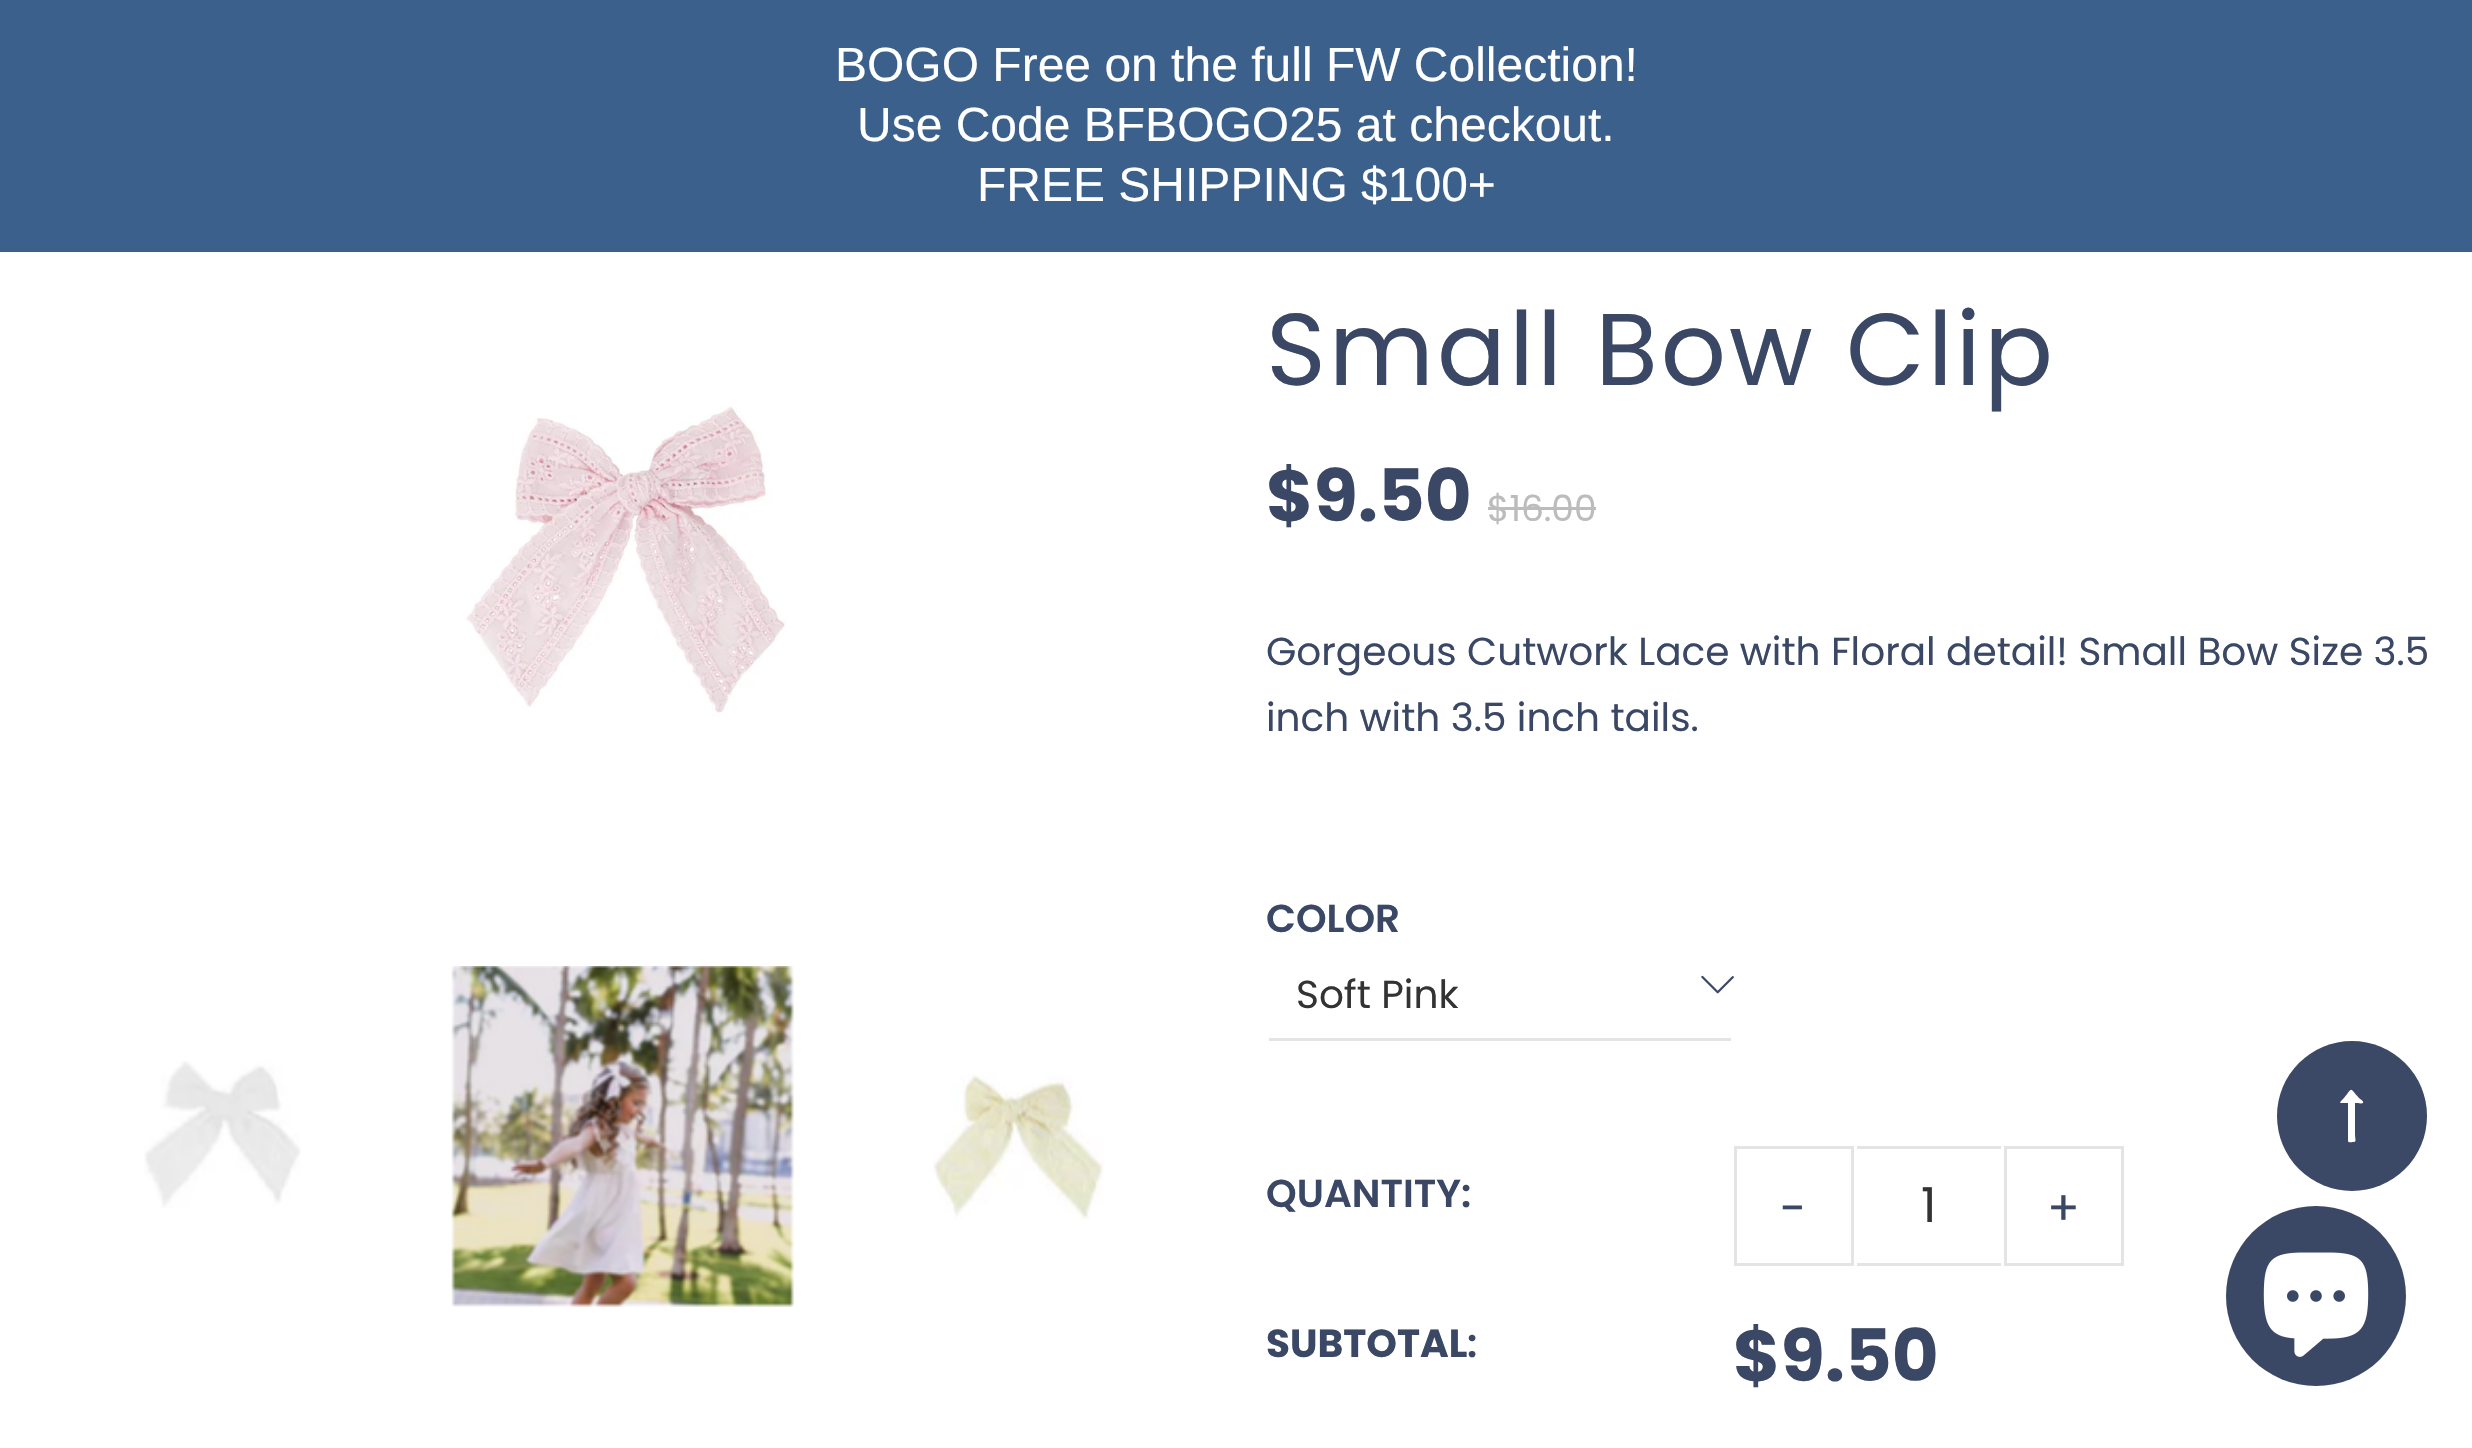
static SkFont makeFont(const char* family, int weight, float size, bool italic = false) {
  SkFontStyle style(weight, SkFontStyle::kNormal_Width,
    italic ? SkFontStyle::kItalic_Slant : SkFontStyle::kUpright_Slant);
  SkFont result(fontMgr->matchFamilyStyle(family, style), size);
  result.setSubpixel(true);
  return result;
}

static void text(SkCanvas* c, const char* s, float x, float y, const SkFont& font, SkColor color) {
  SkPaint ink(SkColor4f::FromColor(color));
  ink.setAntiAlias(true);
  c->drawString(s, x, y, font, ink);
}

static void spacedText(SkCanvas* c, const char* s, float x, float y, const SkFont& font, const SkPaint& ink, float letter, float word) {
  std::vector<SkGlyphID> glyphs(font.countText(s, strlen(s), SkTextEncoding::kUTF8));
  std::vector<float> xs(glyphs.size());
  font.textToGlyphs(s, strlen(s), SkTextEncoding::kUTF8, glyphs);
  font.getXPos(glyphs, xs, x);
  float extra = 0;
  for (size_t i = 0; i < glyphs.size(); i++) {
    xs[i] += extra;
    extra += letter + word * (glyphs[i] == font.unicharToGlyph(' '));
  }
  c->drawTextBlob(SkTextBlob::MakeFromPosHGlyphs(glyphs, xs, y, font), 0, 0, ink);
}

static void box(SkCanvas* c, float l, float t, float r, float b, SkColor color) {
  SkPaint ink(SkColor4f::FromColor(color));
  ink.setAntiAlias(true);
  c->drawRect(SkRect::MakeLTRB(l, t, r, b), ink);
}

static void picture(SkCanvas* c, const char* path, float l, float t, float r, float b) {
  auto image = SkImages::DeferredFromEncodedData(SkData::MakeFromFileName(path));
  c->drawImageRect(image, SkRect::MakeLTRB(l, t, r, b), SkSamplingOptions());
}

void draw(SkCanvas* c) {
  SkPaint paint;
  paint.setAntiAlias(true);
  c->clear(0xffffffff);
  box(c, 0, 0, 2472, 252, 0xff3b608b);
  SkFont face1 = makeFont("Liberation Sans", 400, 48);
  text(c, "BOGO Free on the full FW Collection!", 835, 81, face1, 0xffffffff);
  text(c, "Use Code BFBOGO25 at checkout.", 857, 141, face1, 0xffffffff);
  text(c, "FREE SHIPPING $100+", 977, 201, face1, 0xffffffff);
  picture(c, "img_01.png", 466, 406, 786, 717);
  picture(c, "img_02.png", 144, 1061, 301, 1208);
  picture(c, "img_03.png", 451, 966, 794, 1307);
  picture(c, "img_04.png", 933, 1074, 1104, 1220);
  SkFont face2 = makeFont("Poppins", 400, 102);
  paint.setColor(0xff3a4865);
  spacedText(c, "Small Bow Clip", 1266, 385, face2, paint, 3, 0);
  SkFont face3 = makeFont("Poppins", 700, 72);
  text(c, "$9.50", 1266, 521, face3, 0xff3a4865);
  SkFont face4 = makeFont("Poppins", 400, 36);
  text(c, "$16.00", 1487, 521, face4, 0xffbcbcbc);
  box(c, 1488, 507, 1596, 510, 0xffbcbcbc);
  SkFont face5 = makeFont("Poppins", 400, 39);
  text(c, "Gorgeous Cutwork Lace with Floral detail! Small Bow Size 3.5", 1266, 665, face5, 0xff3a4865);
  text(c, "inch with 3.5 inch tails.", 1266, 731, face5, 0xff3a4865);
  SkFont face6 = makeFont("Poppins", 600, 39);
  text(c, "COLOR", 1266, 932, face6, 0xff3a4865);
  box(c, 1269, 1038, 1731, 1041, 0xffe4e4e4);
  text(c, "Soft Pink", 1296, 1008, face5, 0xff333333);
  picture(c, "img_05.png", 1701, 975, 1734, 994);
  text(c, "QUANTITY:", 1266, 1207, face6, 0xff3a4865);
  paint.setStyle(SkPaint::kStroke_Style);
  paint.setStrokeWidth(3);
  paint.setColor(0xffe4e4e4);
  c->drawRect(SkRect::MakeLTRB(1735.5f, 1147.5f, 1852.5f, 1264.5f), paint);
  SkFont face7 = makeFont("Poppins", 400, 48);
  text(c, "-", 1780, 1225, face7, 0xff3a4865);
  box(c, 1857, 1146, 2001, 1149, 0xffe4e4e4);
  box(c, 1857, 1263, 2001, 1266, 0xffe4e4e4);
  text(c, "1", 1921, 1222, face7, 0xff333333);
  c->drawRect(SkRect::MakeLTRB(2005.5f, 1147.5f, 2122.5f, 1264.5f), paint);
  text(c, "+", 2047, 1225, face7, 0xff3a4865);
  SkFont face8 = makeFont("Poppins", 700, 39);
  text(c, "SUBTOTAL", 1266, 1357, face8, 0xff3a4865);
  text(c, ":", 1467, 1357, face6, 0xff3a4865);
  text(c, "$9.50", 1733, 1381, face3, 0xff3a4865);
  paint.setStyle(SkPaint::kFill_Style);
  paint.setColor(0xff3b4966);
  c->drawCircle(2352, 1116, 75, paint);
  paint.setColor(0xffffffff);
  c->drawPath(SkPathBuilder().moveTo(2363, 1103).cubicTo(2362, 1104, 2357, 1103, 2355, 1103).lineTo(2355, 1134).cubicTo(2355, 1140, 2357, 1142, 2353, 1142).cubicTo(2352, 1142, 2348, 1143, 2348, 1141).lineTo(2348, 1103).cubicTo(2339, 1103, 2338, 1104, 2344, 1098).cubicTo(2353, 1087, 2349, 1087, 2359, 1098).cubicTo(2360, 1099, 2364, 1101, 2363, 1103).close().detach(), paint);
  paint.setColor(0xff3a4865);
  c->drawCircle(2316, 1296, 90, paint);
  picture(c, "img_06.png", 2263, 1252, 2369, 1357);
}
